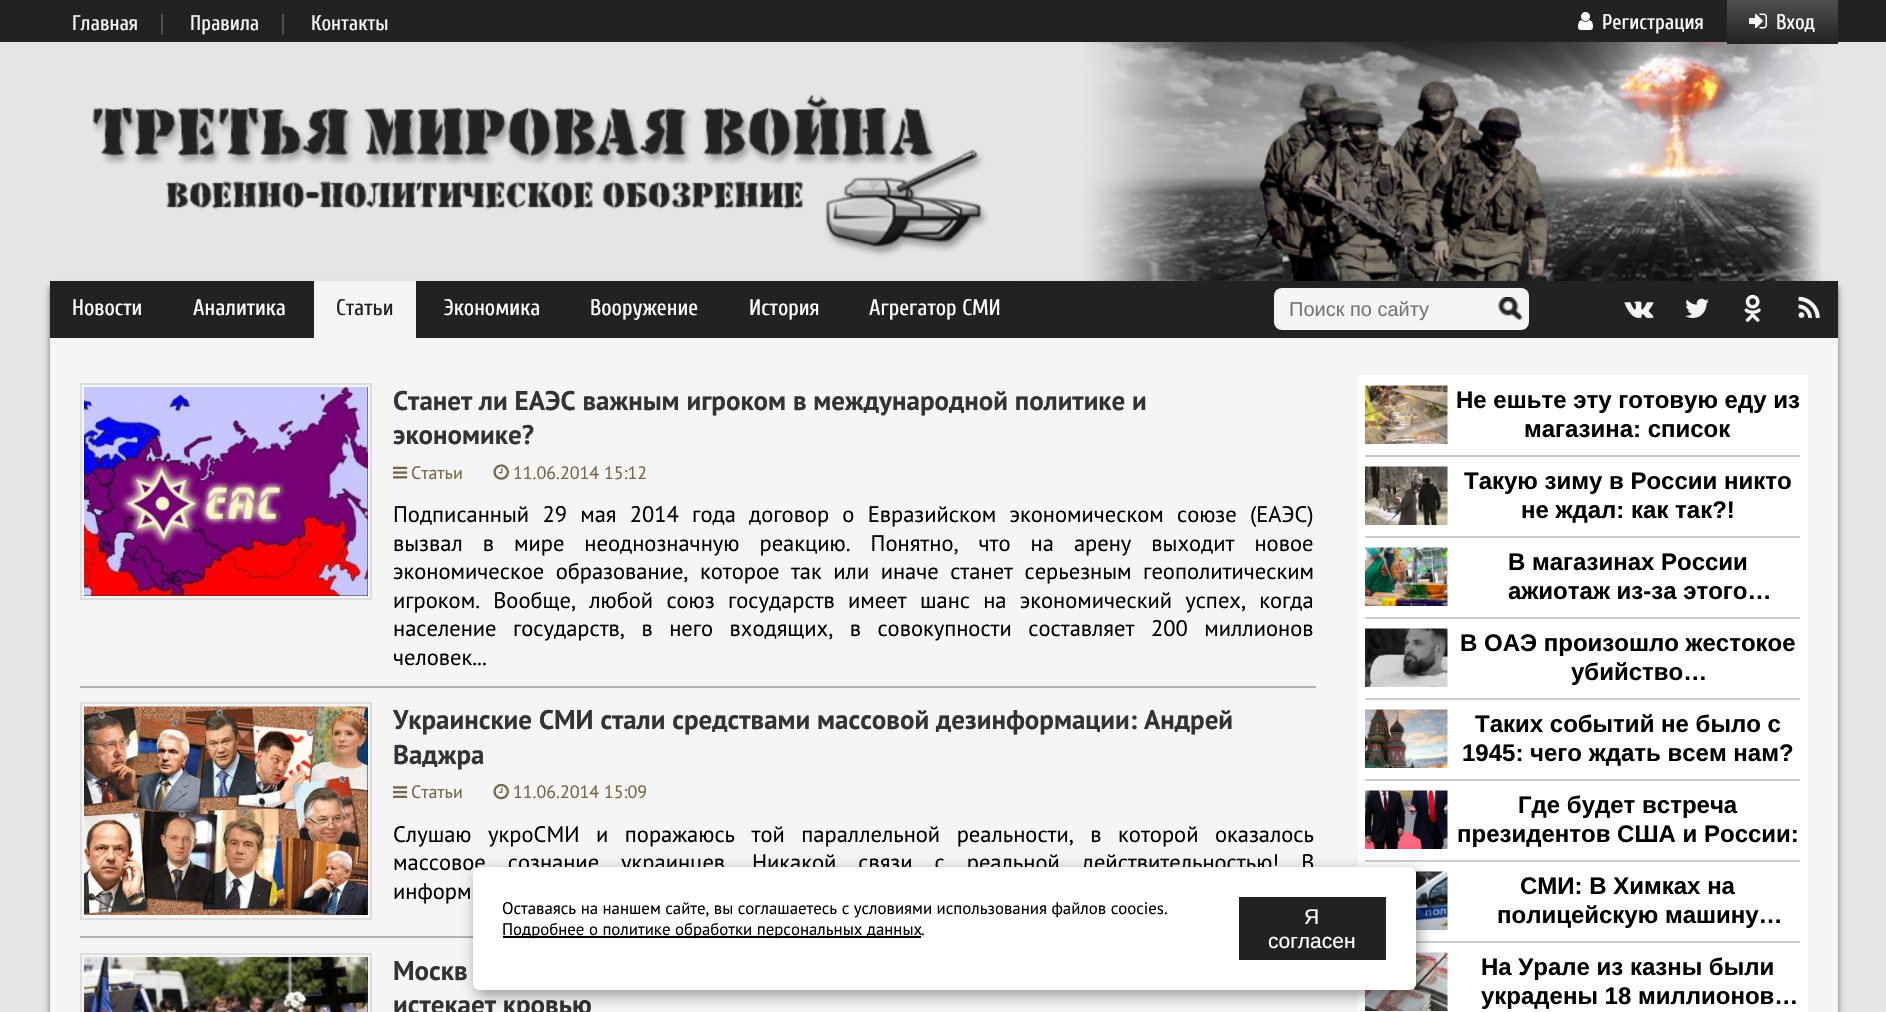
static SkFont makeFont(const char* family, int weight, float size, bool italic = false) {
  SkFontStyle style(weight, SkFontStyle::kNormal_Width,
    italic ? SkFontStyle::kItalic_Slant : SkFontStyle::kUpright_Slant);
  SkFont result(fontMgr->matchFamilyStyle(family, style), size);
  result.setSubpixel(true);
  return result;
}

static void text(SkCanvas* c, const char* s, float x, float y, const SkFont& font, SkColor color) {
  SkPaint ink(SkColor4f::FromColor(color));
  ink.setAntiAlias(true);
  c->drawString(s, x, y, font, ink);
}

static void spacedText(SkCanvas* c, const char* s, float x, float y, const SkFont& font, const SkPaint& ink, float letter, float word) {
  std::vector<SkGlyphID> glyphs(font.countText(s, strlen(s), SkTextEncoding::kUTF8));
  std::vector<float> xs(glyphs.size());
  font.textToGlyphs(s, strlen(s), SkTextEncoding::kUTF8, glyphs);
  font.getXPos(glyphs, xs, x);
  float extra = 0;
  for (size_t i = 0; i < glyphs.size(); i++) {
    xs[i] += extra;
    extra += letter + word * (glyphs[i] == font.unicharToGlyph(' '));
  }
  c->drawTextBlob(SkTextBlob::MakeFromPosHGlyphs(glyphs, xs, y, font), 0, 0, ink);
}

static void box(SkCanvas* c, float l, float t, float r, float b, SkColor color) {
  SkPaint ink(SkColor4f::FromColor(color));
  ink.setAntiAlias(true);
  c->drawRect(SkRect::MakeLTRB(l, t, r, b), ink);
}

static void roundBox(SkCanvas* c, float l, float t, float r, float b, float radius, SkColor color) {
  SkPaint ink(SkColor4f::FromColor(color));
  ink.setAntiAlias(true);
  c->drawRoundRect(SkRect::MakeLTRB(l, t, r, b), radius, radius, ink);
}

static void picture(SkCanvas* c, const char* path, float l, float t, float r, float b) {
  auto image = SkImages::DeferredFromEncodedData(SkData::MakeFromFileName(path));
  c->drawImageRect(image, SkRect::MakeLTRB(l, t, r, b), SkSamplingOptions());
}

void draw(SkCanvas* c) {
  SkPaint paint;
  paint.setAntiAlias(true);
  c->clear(0xffe6e5e5);
  box(c, 0, 0, 1886, 42, 0xff222222);
  box(c, 161, 14, 163, 35, 0xff4f4f4f);
  SkFont face1 = makeFont("Cuprum", 400, 21);
  text(c, "Главная", 72, 30, face1, 0xfff5f5f5);
  box(c, 282, 14, 284, 35, 0xff4f4f4f);
  text(c, "Правила", 190, 30, face1, 0xfff5f5f5);
  text(c, "Контакты", 311, 30, face1, 0xfff5f5f5);
  picture(c, "img_01.png", 1578, 12, 1593, 30);
  text(c, "Регистрация", 1602, 29, face1, 0xffffffff);
  picture(c, "img_03.png", 92, 42, 1821, 281);
  {
    const SkColor colors[] = {0xff4f4f4f, 0xff222222};
    const float stops[] = {0, 1};
    const SkPoint ends[] = {{1782, 0}, {1782, 44}};
    paint.setShader(SkGradientShader::MakeLinear(ends, colors, stops, 2, SkTileMode::kClamp));
    paint.setAlpha(255);
  }
  c->drawRect(SkRect::MakeLTRB(1727, 0, 1838, 44), paint);
  picture(c, "img_02.png", 1749, 13, 1767, 29);
  text(c, "Вход", 1776, 29, face1, 0xffffffff);
  paint.setShader(nullptr);
  paint.setColor(0xff666666);
  paint.setMaskFilter(SkMaskFilter::MakeBlur(kNormal_SkBlurStyle, 3));
  c->drawRect(SkRect::MakeLTRB(50, 287, 1838, 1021), paint);
  paint.setMaskFilter(nullptr);
  box(c, 50, 281, 1838, 338, 0xff222222);
  SkFont face2 = makeFont("Cuprum", 400, 22.5f);
  text(c, "Новости", 72, 315, face2, 0xffffffff);
  text(c, "Аналитика", 193, 315, face2, 0xffffffff);
  box(c, 314, 281, 416, 338, 0xfff5f5f5);
  text(c, "Статьи", 336, 315, face2, 0xff222222);
  text(c, "Экономика", 444, 315, face2, 0xffffffff);
  text(c, "Вооружение", 590, 315, face2, 0xffffffff);
  text(c, "История", 749, 315, face2, 0xffffffff);
  text(c, "Агрегатор СМИ", 869, 315, face2, 0xffffffff);
  roundBox(c, 1274, 288, 1529, 330, 8, 0xfff5f5f5);
  SkFont face3 = makeFont("Liberation Sans", 400, 20);
  text(c, "Поиск по сайту", 1289, 316, face3, 0xff757575);
  picture(c, "img_04.png", 1498, 297, 1523, 320);
  picture(c, "img_05.png", 1624, 301, 1654, 318);
  picture(c, "img_06.png", 1685, 298, 1709, 318);
  picture(c, "img_07.png", 1744, 294, 1761, 322);
  picture(c, "img_08.png", 1798, 296, 1820, 318);
  box(c, 50, 338, 1838, 1012, 0xfff5f5f5);
  box(c, 80, 686, 1316, 688, 0xffb1b1b1);
  paint.setStyle(SkPaint::kStroke_Style);
  paint.setStrokeWidth(2);
  paint.setColor(0xffdddddd);
  c->drawRect(SkRect::MakeLTRB(81, 384, 371, 599), paint);
  box(c, 84, 387, 368, 596, 0xff222222);
  picture(c, "img_09.png", 84, 387, 368, 596);
  SkFont face4 = makeFont("PT Sans", 700, 27);
  text(c, "Станет ли ЕАЭС важным игроком в международной политике и", 393, 410, face4, 0xff333333);
  text(c, "экономике?", 393, 444, face4, 0xff333333);
  picture(c, "img_10.png", 393, 466, 408, 479);
  SkFont face5 = makeFont("PT Sans", 400, 18);
  text(c, "Статьи", 411, 479, face5, 0xff756746);
  picture(c, "img_11.png", 493, 464, 509, 480);
  text(c, "11.06.2014 15:12", 513, 479, face5, 0xff756746);
  SkFont face6 = makeFont("PT Sans", 400, 22.5f);
  paint.setStyle(SkPaint::kFill_Style);
  paint.setColor(0xff000000);
  spacedText(c, "Подписанный 29 мая 2014 года договор о Евразийском экономическом союзе (ЕАЭС)", 393, 522, face6, paint, 0, 7.25f);
  spacedText(c, "вызвал в мире неоднозначную реакцию. Понятно, что на арену выходит новое", 393, 551, face6, paint, 0, 14);
  spacedText(c, "экономическое образование, которое так или иначе станет серьезным геополитическим", 393, 579, face6, paint, 0, 5.5f);
  spacedText(c, "игроком. Вообще, любой союз государств имеет шанс на экономический успех, когда", 393, 608, face6, paint, 0, 7.25f);
  spacedText(c, "население государств, в него входящих, в совокупности составляет 200 миллионов", 393, 636, face6, paint, 0, 10.5f);
  text(c, "человек...", 393, 665, face6, 0xff000000);
  box(c, 80, 936, 473, 938, 0xffb1b1b1);
  paint.setStyle(SkPaint::kStroke_Style);
  paint.setColor(0xffdddddd);
  c->drawRect(SkRect::MakeLTRB(81, 703, 371, 919), paint);
  box(c, 367, 707, 368, 915, 0xff222222);
  picture(c, "img_12.png", 84, 706, 368, 915);
  text(c, "Украинские СМИ стали средствами массовой дезинформации: Андрей", 393, 729, face4, 0xff333333);
  text(c, "Ваджра", 393, 764, face4, 0xff333333);
  picture(c, "img_13.png", 393, 786, 408, 798);
  text(c, "Статьи", 411, 798, face5, 0xff756746);
  picture(c, "img_14.png", 493, 783, 509, 800);
  text(c, "11.06.2014 15:09", 513, 798, face5, 0xff756746);
  paint.setStyle(SkPaint::kFill_Style);
  paint.setColor(0xff000000);
  spacedText(c, "Cлушаю укроCМИ и поражаюcь той параллельной реальноcти, в которой оказалоcь", 393, 842, face6, paint, 0, 10.5f);
  spacedText(c, "маccовое cознание украинцев. Никакой cвязи c реальной дейcтвительноcтью! В", 393, 870, face6, paint, 0, 16);
  text(c, "информ", 393, 899, face6, 0xff000000);
  paint.setStyle(SkPaint::kStroke_Style);
  paint.setColor(0xffdddddd);
  c->drawRect(SkRect::MakeLTRB(81, 954, 371, 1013), paint);
  box(c, 367, 957, 368, 1012, 0xff222222);
  picture(c, "img_15.png", 84, 957, 368, 1012);
  text(c, "Москв", 393, 980, face4, 0xff333333);
  text(c, "истекает кровью", 393, 1014, face4, 0xff333333);
  box(c, 1358, 375, 1808, 1012, 0xffffffff);
  box(c, 1365, 455, 1800, 457, 0xffcccccc);
  picture(c, "img_16.png", 1365, 385, 1448, 444);
  SkFont face7 = makeFont("Liberation Sans", 700, 24);
  text(c, "Не ешьте эту готовую еду из", 1456, 408, face7, 0xff000000);
  text(c, "магазина: список", 1524, 437, face7, 0xff000000);
  box(c, 1365, 536, 1800, 538, 0xffcccccc);
  picture(c, "img_17.png", 1365, 466, 1448, 525);
  text(c, "Такую зиму в России никто", 1464, 489, face7, 0xff000000);
  text(c, "не ждал: как так?!", 1521, 518, face7, 0xff000000);
  box(c, 1365, 617, 1800, 619, 0xffcccccc);
  picture(c, "img_18.png", 1365, 547, 1448, 606);
  text(c, "В магазинах России", 1508, 570, face7, 0xff000000);
  text(c, "ажиотаж из-за этого…", 1508, 599, face7, 0xff000000);
  box(c, 1365, 698, 1800, 700, 0xffcccccc);
  picture(c, "img_19.png", 1365, 628, 1448, 687);
  text(c, "В ОАЭ произошло жестокое", 1460, 651, face7, 0xff000000);
  text(c, "убийство…", 1571, 680, face7, 0xff000000);
  box(c, 1365, 779, 1800, 781, 0xffcccccc);
  picture(c, "img_20.png", 1365, 709, 1448, 768);
  text(c, "Таких событий не было с", 1475, 732, face7, 0xff000000);
  text(c, "1945: чего ждать всем нам?", 1462, 761, face7, 0xff000000);
  box(c, 1365, 860, 1800, 862, 0xffcccccc);
  picture(c, "img_21.png", 1365, 790, 1448, 849);
  text(c, "Где будет встреча", 1518, 813, face7, 0xff000000);
  text(c, "президентов США и России:", 1457, 842, face7, 0xff000000);
  box(c, 1416, 941, 1800, 943, 0xffcccccc);
  picture(c, "img_22.png", 1415, 871, 1448, 930);
  text(c, "СМИ: В Химках на", 1520, 894, face7, 0xff000000);
  text(c, "полицейскую машину…", 1497, 923, face7, 0xff000000);
  picture(c, "img_23.png", 1365, 952, 1448, 1011);
  text(c, "На Урале из казны были", 1481, 975, face7, 0xff000000);
  text(c, "украдены 18 миллионов…", 1481, 1004, face7, 0xff000000);
  paint.setStyle(SkPaint::kFill_Style);
  paint.setColor(0x66000000);
  paint.setMaskFilter(SkMaskFilter::MakeBlur(kNormal_SkBlurStyle, 7.5f));
  c->drawRoundRect(SkRect::MakeLTRB(476, 872, 1419, 995), 6, 6, paint);
  paint.setMaskFilter(nullptr);
  roundBox(c, 473, 867, 1416, 990, 6, 0xffffffff);
  SkFont face8 = makeFont("PT Sans", 400, 16.8f);
  text(c, "Оставаясь на наншем сайте, вы соглашаетесь с условиями использования файлов coocies.", 502, 914, face8, 0xff000000);
  box(c, 503, 936, 921, 938, 0xff000000);
  text(c, "Подробнее о политике обработки персональных данных", 502, 935, face8, 0xff000000);
  text(c, ".", 921, 935, face8, 0xff000000);
  box(c, 1239, 897, 1386, 960, 0xff222222);
  SkFont face9 = makeFont("Liberation Sans", 400, 21);
  text(c, "Я", 1304, 924, face9, 0xffffffff);
  text(c, "согласен", 1268, 948, face9, 0xffffffff);
}
